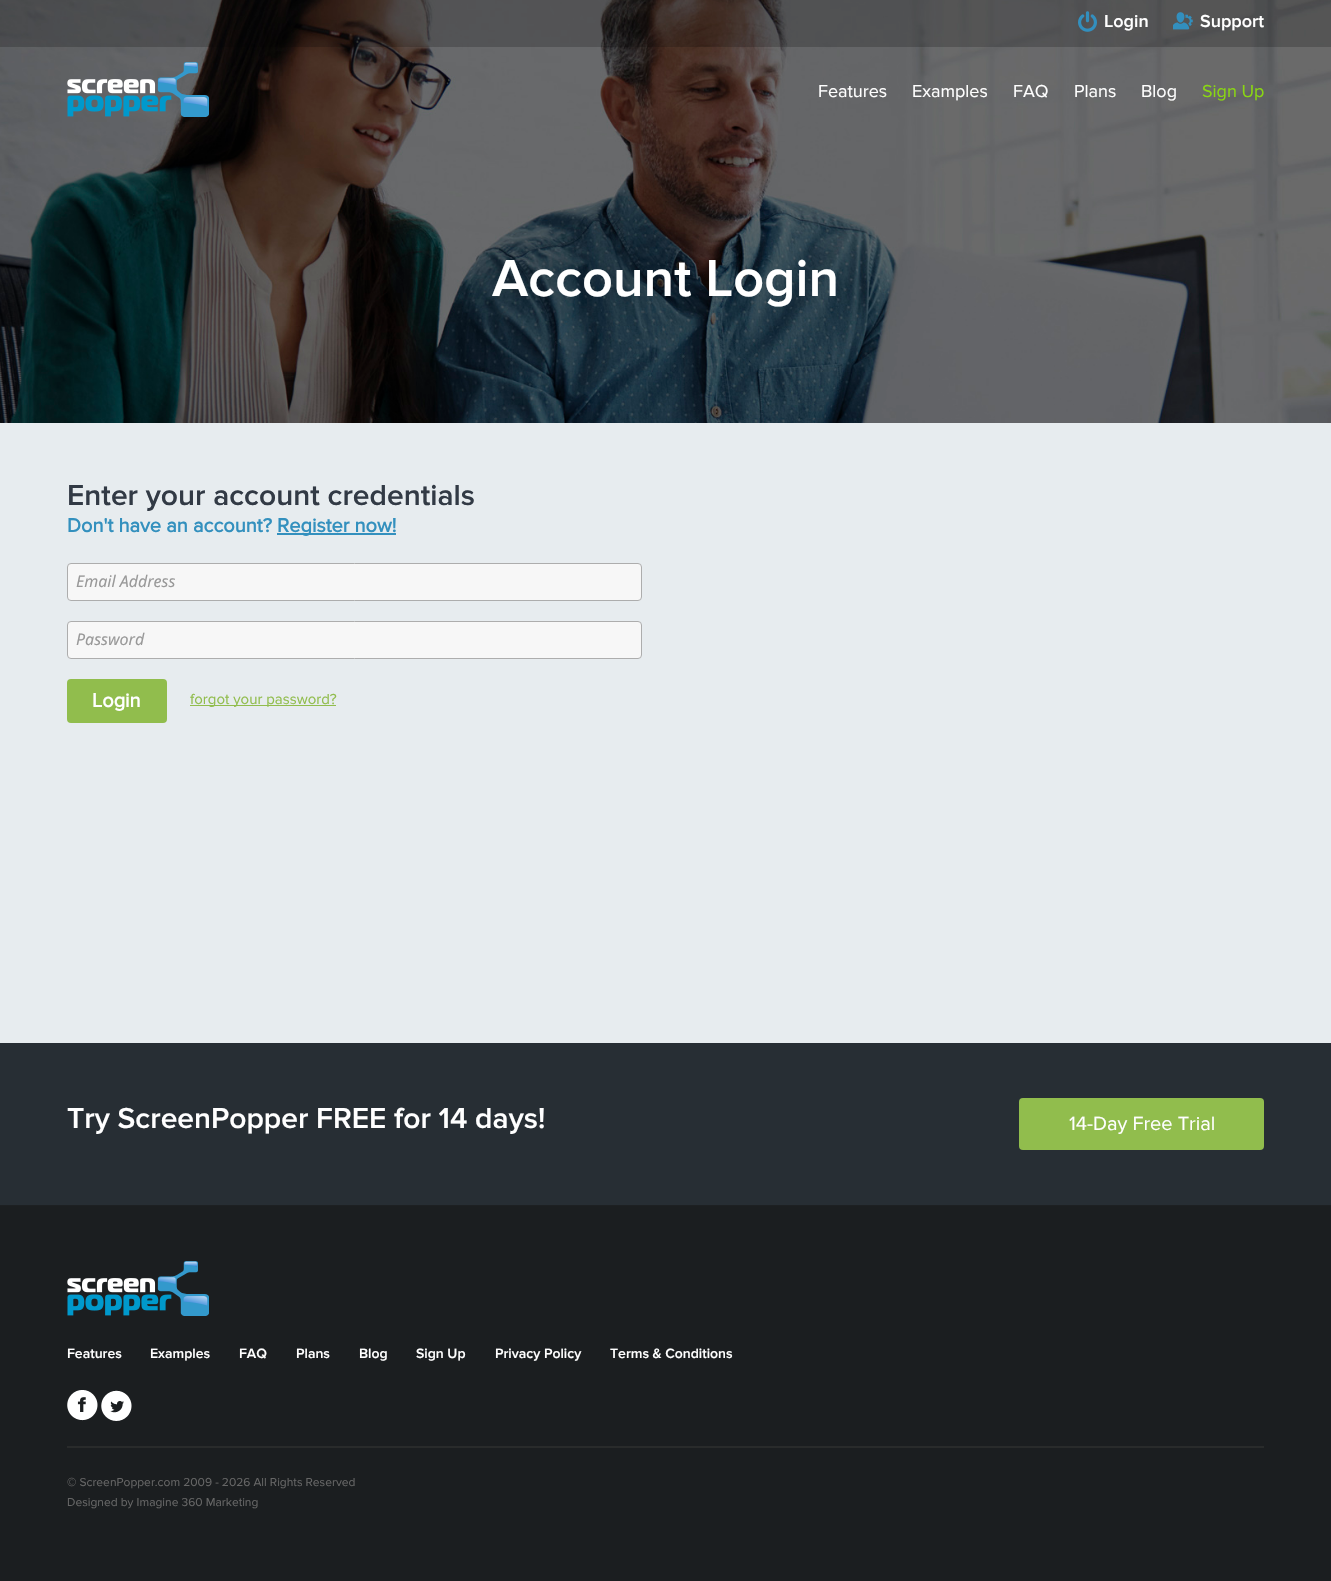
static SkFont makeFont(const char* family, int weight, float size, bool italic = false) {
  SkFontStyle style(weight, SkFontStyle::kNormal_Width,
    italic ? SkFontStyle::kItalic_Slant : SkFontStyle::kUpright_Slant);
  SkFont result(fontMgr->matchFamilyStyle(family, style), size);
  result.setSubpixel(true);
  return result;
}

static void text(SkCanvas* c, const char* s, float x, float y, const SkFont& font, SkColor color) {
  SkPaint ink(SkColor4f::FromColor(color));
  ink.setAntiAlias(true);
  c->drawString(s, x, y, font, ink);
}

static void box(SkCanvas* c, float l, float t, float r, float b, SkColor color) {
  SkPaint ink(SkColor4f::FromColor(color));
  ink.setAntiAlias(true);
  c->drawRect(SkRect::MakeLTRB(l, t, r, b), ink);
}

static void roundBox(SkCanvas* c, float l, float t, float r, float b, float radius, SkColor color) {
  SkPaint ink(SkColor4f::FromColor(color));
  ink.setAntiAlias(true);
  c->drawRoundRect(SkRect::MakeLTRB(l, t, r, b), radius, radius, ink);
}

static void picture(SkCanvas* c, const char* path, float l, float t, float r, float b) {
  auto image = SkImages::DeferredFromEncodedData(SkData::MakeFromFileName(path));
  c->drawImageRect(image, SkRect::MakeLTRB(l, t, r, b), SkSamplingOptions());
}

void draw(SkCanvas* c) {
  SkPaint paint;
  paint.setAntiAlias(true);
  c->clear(0xffe7ecef);
  picture(c, "img_04.png", 0, 0, 1331, 423);
  box(c, 0, 0, 1331, 47, 0x33000000);
  picture(c, "img_01.png", 1078, 11, 1097, 32);
  SkFont face1 = makeFont("Proxima Nova", 600, 18);
  text(c, "Login", 1104, 27, face1, 0xffffffff);
  picture(c, "img_02.png", 1173, 12, 1193, 30);
  text(c, "Support", 1200, 27, face1, 0xffffffff);
  picture(c, "img_03.png", 67, 62, 209, 117);
  SkFont face2 = makeFont("Proxima Nova", 400, 18);
  text(c, "Features", 818, 97, face2, 0xffffffff);
  text(c, "Examples", 912, 97, face2, 0xffffffff);
  text(c, "FAQ", 1013, 97, face2, 0xffffffff);
  text(c, "Plans", 1074, 97, face2, 0xffffffff);
  text(c, "Blog", 1141, 97, face2, 0xffffffff);
  text(c, "Sign Up", 1202, 97, face2, 0xff8ad712);
  SkFont face3 = makeFont("Proxima Nova", 600, 54);
  text(c, "Account Login", 492, 296, face3, 0xffffffff);
  SkFont face4 = makeFont("Proxima Nova", 600, 30);
  text(c, "Enter your account credentials", 67, 505, face4, 0xff323a45);
  SkFont face5 = makeFont("Proxima Nova", 700, 20);
  text(c, "Don't have an account?", 67, 532, face5, 0xff3390be);
  box(c, 277, 533, 396, 535, 0xff3390be);
  text(c, "Register now!", 277, 532, face5, 0xff3390be);
  paint.setColor(0xfff7f7f7);
  c->drawRoundRect(SkRect::MakeLTRB(67.5f, 563.5f, 641.5f, 600.5f), 3.5f, 3.5f, paint);
  paint.setStyle(SkPaint::kStroke_Style);
  paint.setStrokeWidth(1);
  paint.setColor(0xffadadad);
  c->drawRoundRect(SkRect::MakeLTRB(67.5f, 563.5f, 641.5f, 600.5f), 3.5f, 3.5f, paint);
  SkFont face6 = makeFont("Noto Sans", 400, 16, true);
  text(c, "Email Address", 76, 587, face6, 0xff999999);
  paint.setStyle(SkPaint::kFill_Style);
  paint.setColor(0xfff7f7f7);
  c->drawRoundRect(SkRect::MakeLTRB(67.5f, 621.5f, 641.5f, 658.5f), 3.5f, 3.5f, paint);
  paint.setStyle(SkPaint::kStroke_Style);
  paint.setColor(0xffadadad);
  c->drawRoundRect(SkRect::MakeLTRB(67.5f, 621.5f, 641.5f, 658.5f), 3.5f, 3.5f, paint);
  text(c, "Password", 76, 645, face6, 0xff999999);
  roundBox(c, 67, 679, 167, 723, 4, 0xff91bd4d);
  text(c, "Login", 92, 707, face5, 0xffffffff);
  box(c, 190, 705, 336, 706, 0xff91bd4d);
  SkFont face7 = makeFont("Proxima Nova", 400, 15);
  text(c, "forgot your password?", 190, 704, face7, 0xff91bd4d);
  box(c, 0, 1043, 1331, 1205, 0xff272e34);
  text(c, "Try ScreenPopper FREE for 14 days!", 67, 1128, face4, 0xffffffff);
  roundBox(c, 1019, 1098, 1264, 1150, 4, 0xff91bd4d);
  SkFont face8 = makeFont("Proxima Nova", 400, 20);
  text(c, "14-Day Free Trial", 1069, 1130, face8, 0xffffffff);
  box(c, 0, 1206, 1331, 1581, 0xff1b1e20);
  box(c, 0, 1205, 1331, 1206, 0xff1d2022);
  picture(c, "img_05.png", 67, 1261, 209, 1316);
  SkFont face9 = makeFont("Proxima Nova", 600, 14);
  text(c, "Features", 67, 1358, face9, 0xffffffff);
  text(c, "Examples", 150, 1358, face9, 0xffffffff);
  text(c, "FAQ", 239, 1358, face9, 0xffffffff);
  text(c, "Plans", 296, 1358, face9, 0xffffffff);
  text(c, "Blog", 359, 1358, face9, 0xffffffff);
  text(c, "Sign Up", 416, 1358, face9, 0xffffffff);
  text(c, "Privacy Policy", 495, 1358, face9, 0xffffffff);
  text(c, "Terms & Conditions", 610, 1358, face9, 0xffffffff);
  picture(c, "img_06.png", 67, 1390, 98, 1421);
  picture(c, "img_07.png", 101, 1390, 132, 1421);
  box(c, 67, 1446, 1264, 1448, 0xff292b2b);
  SkFont face10 = makeFont("Proxima Nova", 400, 12);
  text(c, "© ScreenPopper.com 2009 - 2026 All Rights Reserved", 67, 1486, face10, 0xff666666);
  text(c, "Designed by Imagine 360 Marketing", 67, 1506, face10, 0xff666666);
}
